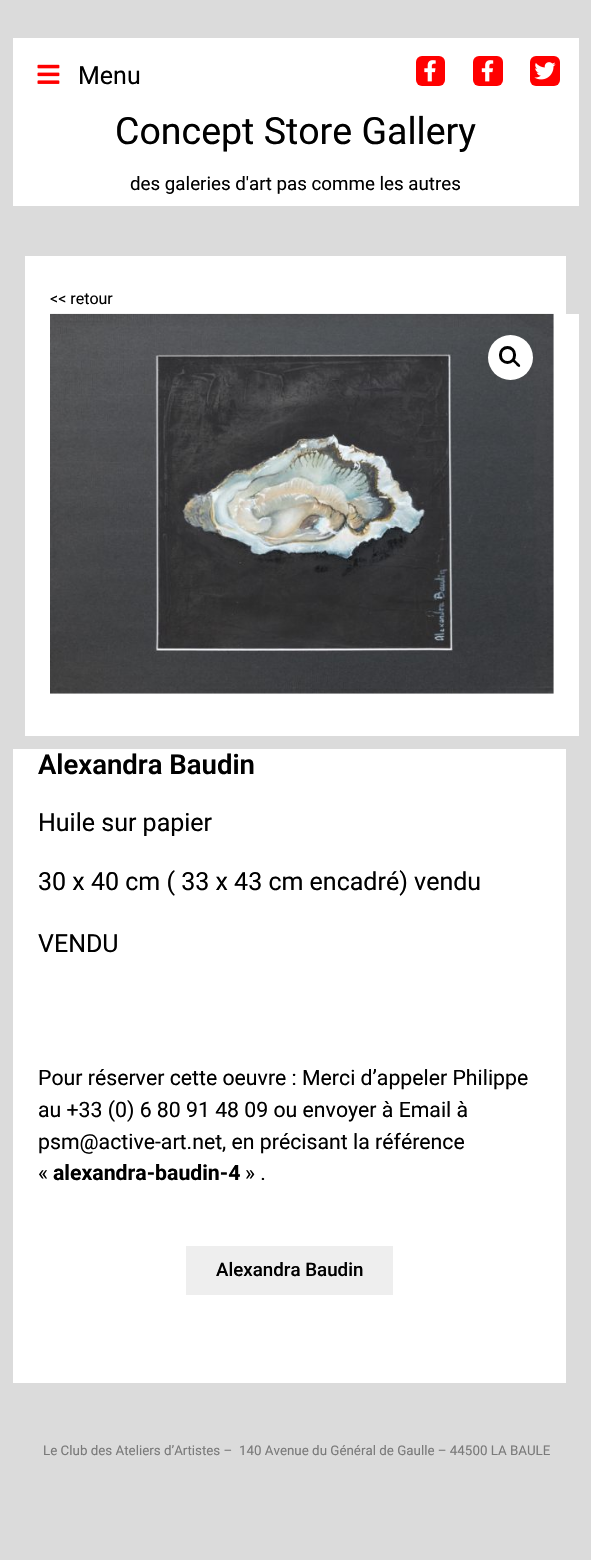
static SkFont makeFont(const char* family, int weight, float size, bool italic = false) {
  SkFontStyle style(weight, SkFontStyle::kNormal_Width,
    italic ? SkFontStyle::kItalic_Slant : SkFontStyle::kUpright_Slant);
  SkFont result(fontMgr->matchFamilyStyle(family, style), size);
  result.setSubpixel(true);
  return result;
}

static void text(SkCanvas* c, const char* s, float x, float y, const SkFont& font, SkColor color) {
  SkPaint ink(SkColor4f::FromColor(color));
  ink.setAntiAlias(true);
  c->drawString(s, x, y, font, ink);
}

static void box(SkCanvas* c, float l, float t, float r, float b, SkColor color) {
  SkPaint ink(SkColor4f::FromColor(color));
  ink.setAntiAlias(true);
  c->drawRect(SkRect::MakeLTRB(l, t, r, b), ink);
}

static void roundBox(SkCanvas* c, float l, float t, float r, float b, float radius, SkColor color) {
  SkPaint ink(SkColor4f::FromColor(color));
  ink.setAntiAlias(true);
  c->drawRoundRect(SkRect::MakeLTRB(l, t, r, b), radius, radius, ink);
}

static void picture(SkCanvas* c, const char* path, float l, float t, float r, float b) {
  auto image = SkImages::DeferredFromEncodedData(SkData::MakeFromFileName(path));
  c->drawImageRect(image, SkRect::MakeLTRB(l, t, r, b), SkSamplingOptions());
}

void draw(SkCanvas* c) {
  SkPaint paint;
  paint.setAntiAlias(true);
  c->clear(0xffdbdbdb);
  box(c, 13, 38, 579, 206, 0xffffffff);
  picture(c, "img_01.png", 37, 64, 60, 84);
  SkFont face1 = makeFont("Roboto", 400, 25);
  text(c, "Menu", 78, 84, face1, 0xff000000);
  roundBox(c, 416, 56, 445, 86, 6, 0xffff0000);
  picture(c, "img_02.png", 424, 60, 436, 82);
  roundBox(c, 473, 56, 503, 86, 6, 0xffff0000);
  picture(c, "img_03.png", 481, 60, 494, 82);
  roundBox(c, 530, 56, 560, 86, 6, 0xffff0000);
  picture(c, "img_04.png", 534, 62, 556, 80);
  SkFont face2 = makeFont("Roboto", 400, 37.5f);
  text(c, "Concept Store Gallery", 115, 144, face2, 0xff000000);
  SkFont face3 = makeFont("Roboto", 400, 18.75f);
  text(c, "des galeries d'art pas comme les autres", 130, 190, face3, 0xff000000);
  box(c, 25, 256, 566, 314, 0xffffffff);
  SkFont face4 = makeFont("Roboto", 400, 16);
  text(c, "<< retour", 50, 304, face4, 0xff000000);
  box(c, 25, 314, 579, 736, 0xffffffff);
  picture(c, "img_05.png", 50, 313, 554, 694);
  paint.setColor(0xffffffff);
  c->drawCircle(510.5f, 357.5f, 22.5f, paint);
  paint.setStyle(SkPaint::kStroke_Style);
  paint.setStrokeWidth(3);
  paint.setColor(0xff000000);
  c->drawRoundRect(SkRect::MakeLTRB(500.5f, 347.5f, 514.5f, 362.5f), 7, 7, paint);
  paint.setStyle(SkPaint::kFill_Style);
  c->drawPath(SkPathBuilder().moveTo(512.5f, 359.5f).cubicTo(514, 358, 516.5f, 361.5f, 517, 362).cubicTo(518, 363, 521, 365, 520, 366.5f).cubicTo(518.5f, 368, 516, 365, 515.5f, 364).cubicTo(514.5f, 363, 511.5f, 361, 512.5f, 359.5f).close().detach(), paint);
  box(c, 13, 749, 566, 1383, 0xffffffff);
  SkFont face5 = makeFont("Roboto", 600, 27.5f);
  text(c, "Alexandra Baudin", 38, 774, face5, 0xff000000);
  text(c, "Huile sur papier", 38, 831, face1, 0xff000000);
  text(c, "30 x 40 cm ( 33 x 43 cm encadré) vendu", 38, 890, face1, 0xff000000);
  text(c, "VENDU", 38, 952, face1, 0xff000000);
  SkFont face6 = makeFont("Roboto", 400, 21.25f);
  text(c, "Pour réserver cette oeuvre : Merci d’appeler Philippe", 38, 1085, face6, 0xff000000);
  text(c, "au +33 (0) 6 80 91 48 09 ou envoyer à Email à", 38, 1117, face6, 0xff000000);
  text(c, "psm@active-art.net, en précisant la référence", 38, 1149, face6, 0xff000000);
  text(c, "«", 38, 1180, face6, 0xff000000);
  SkFont face7 = makeFont("Roboto", 700, 21.25f);
  text(c, "alexandra-baudin-4", 53, 1180, face7, 0xff000000);
  text(c, "» .", 245, 1180, face6, 0xff000000);
  box(c, 186, 1246, 393, 1295, 0xffeeeeee);
  SkFont face8 = makeFont("Roboto", 500, 18.75f);
  text(c, "Alexandra Baudin", 216, 1276, face8, 0xff000000);
  SkFont face9 = makeFont("Roboto", 400, 13.35f);
  text(c, "Le Club des Ateliers d’Artistes –  140 Avenue du Général de Gaulle – 44500 LA BAULE", 43, 1455, face9, 0xff7a7a7a);
}
